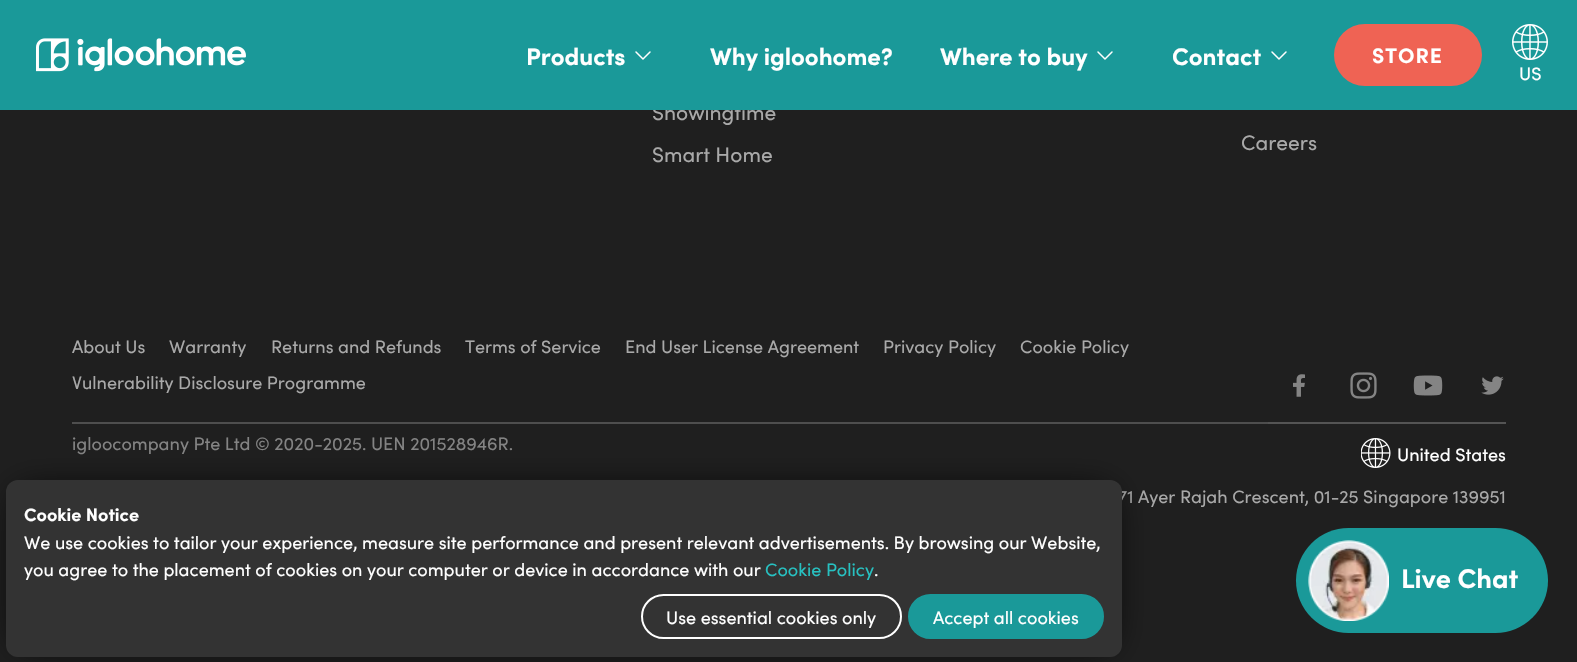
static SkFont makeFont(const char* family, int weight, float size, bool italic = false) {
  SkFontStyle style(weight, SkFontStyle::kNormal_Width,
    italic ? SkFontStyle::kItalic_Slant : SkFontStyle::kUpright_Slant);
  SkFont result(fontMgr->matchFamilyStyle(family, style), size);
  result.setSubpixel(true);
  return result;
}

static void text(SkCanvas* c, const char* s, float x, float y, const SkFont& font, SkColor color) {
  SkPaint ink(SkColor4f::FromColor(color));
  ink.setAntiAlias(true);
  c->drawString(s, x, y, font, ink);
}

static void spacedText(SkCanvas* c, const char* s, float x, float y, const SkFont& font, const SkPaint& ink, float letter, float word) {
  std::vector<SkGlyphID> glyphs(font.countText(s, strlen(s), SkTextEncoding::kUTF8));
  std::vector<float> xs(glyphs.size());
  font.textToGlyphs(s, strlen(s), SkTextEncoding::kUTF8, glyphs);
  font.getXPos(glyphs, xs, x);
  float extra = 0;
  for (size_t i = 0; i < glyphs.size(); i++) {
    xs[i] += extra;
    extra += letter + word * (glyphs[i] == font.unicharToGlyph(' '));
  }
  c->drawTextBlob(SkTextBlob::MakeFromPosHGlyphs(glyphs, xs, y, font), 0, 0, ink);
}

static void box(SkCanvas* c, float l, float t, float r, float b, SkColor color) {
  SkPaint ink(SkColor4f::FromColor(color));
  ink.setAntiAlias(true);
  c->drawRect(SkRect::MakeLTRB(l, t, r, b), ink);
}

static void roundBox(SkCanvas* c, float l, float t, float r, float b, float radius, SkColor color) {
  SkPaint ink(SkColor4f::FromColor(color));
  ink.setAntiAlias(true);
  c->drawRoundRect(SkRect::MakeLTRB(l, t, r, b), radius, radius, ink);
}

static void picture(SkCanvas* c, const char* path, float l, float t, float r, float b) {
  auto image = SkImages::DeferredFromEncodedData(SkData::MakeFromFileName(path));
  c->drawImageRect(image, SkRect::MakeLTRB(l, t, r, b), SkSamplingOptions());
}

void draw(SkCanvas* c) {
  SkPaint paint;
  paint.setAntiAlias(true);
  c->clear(0xff1f1f1f);
  SkFont face1 = makeFont("Sofia", 400, 21);
  text(c, "Showingtime", 652, 120, face1, 0xffa9a9a9);
  box(c, 0, 0, 1577, 110, 0xff1a9999);
  picture(c, "img_01.png", 36, 38, 246, 72);
  SkFont face2 = makeFont("Sofia", 700, 24);
  text(c, "Products", 526, 65, face2, 0xffffffff);
  paint.setStyle(SkPaint::kStroke_Style);
  paint.setStrokeWidth(1.5f);
  paint.setStrokeCap(SkPaint::kRound_Cap);
  paint.setStrokeJoin(SkPaint::kRound_Join);
  paint.setColor(0xffffffff);
  c->drawPath(SkPathBuilder().moveTo(650, 52).lineTo(643, 59).lineTo(636, 52).detach(), paint);
  text(c, "Why igloohome?", 710, 65, face2, 0xffffffff);
  text(c, "Where to buy", 940, 65, face2, 0xffffffff);
  c->drawPath(SkPathBuilder().moveTo(1112, 52).lineTo(1105, 59).lineTo(1098, 52).detach(), paint);
  text(c, "Contact", 1172, 65, face2, 0xffffffff);
  c->drawPath(SkPathBuilder().moveTo(1286, 52).lineTo(1279, 59).lineTo(1272, 52).detach(), paint);
  roundBox(c, 1334, 24, 1482, 86, 31, 0xffef6354);
  SkFont face3 = makeFont("Sofia", 700, 21);
  paint.setStyle(SkPaint::kFill_Style);
  spacedText(c, "STORE", 1372, 63, face3, paint, 1, 0);
  picture(c, "img_02.png", 1512, 24, 1548, 60);
  SkFont face4 = makeFont("Sofia", 400, 18);
  text(c, "US", 1519, 80, face4, 0xffffffff);
  text(c, "Smart Home", 652, 162, face1, 0xffa9a9a9);
  text(c, "Careers", 1241, 150, face1, 0xffa9a9a9);
  text(c, "About Us", 72, 353, face4, 0xffa9a9a9);
  text(c, "Warranty", 169, 353, face4, 0xffa9a9a9);
  text(c, "Returns and Refunds", 271, 353, face4, 0xffa9a9a9);
  text(c, "Terms of Service", 465, 353, face4, 0xffa9a9a9);
  text(c, "End User License Agreement", 625, 353, face4, 0xffa9a9a9);
  text(c, "Privacy Policy", 883, 353, face4, 0xffa9a9a9);
  text(c, "Cookie Policy", 1020, 353, face4, 0xffa9a9a9);
  text(c, "Vulnerability Disclosure Programme", 72, 389, face4, 0xffa9a9a9);
  picture(c, "img_03.png", 1293, 374, 1305, 397);
  picture(c, "img_04.png", 1350, 372, 1377, 399);
  picture(c, "img_05.png", 1413, 375, 1443, 396);
  picture(c, "img_06.png", 1481, 376, 1504, 395);
  box(c, 72, 422, 1268, 424, 0xff4e4e4e);
  text(c, "igloocompany Pte Ltd © 2020-2025. UEN 201528946R.", 72, 450, face4, 0xff848484);
  box(c, 1268, 422, 1506, 424, 0xff545454);
  picture(c, "img_07.png", 1361, 438, 1391, 468);
  text(c, "United States", 1397, 461, face4, 0xffffffff);
  text(c, "71 Ayer Rajah Crescent, 01-25 Singapore 139951", 1118, 503, face4, 0xffa9a9a9);
  roundBox(c, 1296, 528, 1548, 633, 52.5f, 0xff1a9999);
  picture(c, "img_08.png", 1308, 540, 1389, 621);
  SkFont face5 = makeFont("Sofia", 700, 27);
  text(c, "Live Chat", 1401, 588, face5, 0xffffffff);
  paint.setColor(0xff000000);
  paint.setMaskFilter(SkMaskFilter::MakeBlur(kNormal_SkBlurStyle, 18));
  c->drawRect(SkRect::MakeLTRB(18, 492, 1110, 645), paint);
  paint.setMaskFilter(nullptr);
  roundBox(c, 6, 480, 1122, 657, 12, 0xff333333);
  SkFont face6 = makeFont("Sofia", 700, 18);
  text(c, "Cookie Notice", 24, 521, face6, 0xffffffff);
  text(c, "We use cookies to tailor your experience, measure site performance and present relevant advertisements. By browsing our Website,", 24, 549, face4, 0xffffffff);
  text(c, "you agree to the placement of cookies on your computer or device in accordance with our", 24, 576, face4, 0xffffffff);
  text(c, "Cookie Policy", 765, 576, face4, 0xff27c1c1);
  text(c, ".", 874, 576, face4, 0xffffffff);
  paint.setStyle(SkPaint::kStroke_Style);
  paint.setStrokeWidth(2);
  paint.setStrokeCap(SkPaint::kButt_Cap);
  paint.setStrokeJoin(SkPaint::kMiter_Join);
  paint.setColor(0xffffffff);
  c->drawRoundRect(SkRect::MakeLTRB(642, 595, 901, 638), 21.5f, 21.5f, paint);
  text(c, "Use essential cookies only", 666, 624, face4, 0xffffffff);
  paint.setStyle(SkPaint::kFill_Style);
  paint.setColor(0xff1a9999);
  c->drawRoundRect(SkRect::MakeLTRB(909, 595, 1103, 638), 21.5f, 21.5f, paint);
  paint.setStyle(SkPaint::kStroke_Style);
  c->drawRoundRect(SkRect::MakeLTRB(909, 595, 1103, 638), 21.5f, 21.5f, paint);
  text(c, "Accept all cookies", 933, 624, face4, 0xffffffff);
}
